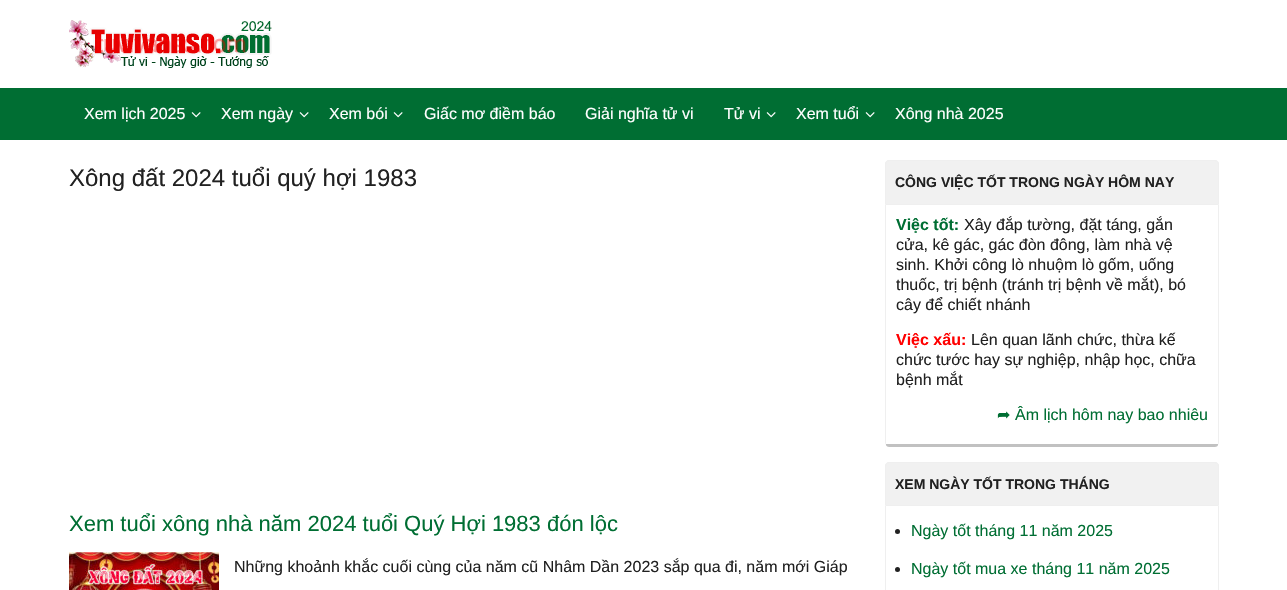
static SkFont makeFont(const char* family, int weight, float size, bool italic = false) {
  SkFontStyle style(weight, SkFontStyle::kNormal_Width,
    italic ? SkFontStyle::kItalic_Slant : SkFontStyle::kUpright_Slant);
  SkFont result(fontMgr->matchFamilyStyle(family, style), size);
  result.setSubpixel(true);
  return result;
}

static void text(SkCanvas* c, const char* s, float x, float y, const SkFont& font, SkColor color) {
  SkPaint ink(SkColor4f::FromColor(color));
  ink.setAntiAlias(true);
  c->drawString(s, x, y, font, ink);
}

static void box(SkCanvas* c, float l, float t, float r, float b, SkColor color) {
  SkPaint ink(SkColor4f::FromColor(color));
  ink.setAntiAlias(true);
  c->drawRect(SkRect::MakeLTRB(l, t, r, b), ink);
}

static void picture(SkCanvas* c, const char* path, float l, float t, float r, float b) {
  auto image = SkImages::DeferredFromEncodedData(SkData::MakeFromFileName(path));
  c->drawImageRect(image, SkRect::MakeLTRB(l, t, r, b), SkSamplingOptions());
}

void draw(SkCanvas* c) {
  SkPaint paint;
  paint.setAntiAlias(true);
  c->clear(0xffffffff);
  picture(c, "img_01.png", 69, 20, 272, 68);
  box(c, 0, 88, 1287, 140, 0xff006e33);
  SkFont face1 = makeFont("Liberation Sans", 400, 16);
  text(c, "Xem lịch 2025", 84, 119, face1, 0xffffffff);
  picture(c, "img_02.png", 191, 112, 201, 118);
  text(c, "Xem ngày", 221, 119, face1, 0xffffffff);
  picture(c, "img_02.png", 299, 112, 309, 118);
  text(c, "Xem bói", 329, 119, face1, 0xffffffff);
  picture(c, "img_02.png", 393, 112, 403, 118);
  text(c, "Giấc mơ điềm báo", 424, 119, face1, 0xffffffff);
  text(c, "Giải nghĩa tử vi", 585, 119, face1, 0xffffffff);
  text(c, "Tử vi", 724, 119, face1, 0xffffffff);
  picture(c, "img_02.png", 766, 112, 776, 118);
  text(c, "Xem tuổi", 796, 119, face1, 0xffffffff);
  picture(c, "img_02.png", 865, 112, 875, 118);
  text(c, "Xông nhà 2025", 895, 119, face1, 0xffffffff);
  SkFont face2 = makeFont("Liberation Sans", 400, 24);
  text(c, "Xông đất 2024 tuổi quý hợi 1983", 69, 186, face2, 0xff212121);
  SkFont face3 = makeFont("Liberation Sans", 400, 22);
  text(c, "Xem tuổi xông nhà năm 2024 tuổi Quý Hợi 1983 đón lộc", 69, 531, face3, 0xff006e33);
  picture(c, "img_03.png", 69, 552, 219, 590);
  text(c, "Những khoảnh khắc cuối cùng của năm cũ Nhâm Dần 2023 sắp qua đi, năm mới Giáp", 234, 572, face1, 0xff212121);
  paint.setColor(0xfff1f1f1);
  c->drawPath(SkPathBuilder().moveTo(889, 160).lineTo(1215, 160).cubicTo(1217, 160, 1219, 162, 1219, 164).lineTo(1219, 204).lineTo(885, 204).lineTo(885, 164).cubicTo(885, 162, 887, 160, 889, 160).close().detach(), paint);
  paint.setColor(0xffefefef);
  c->drawPath(SkPathBuilder(SkPathFillType::kEvenOdd).moveTo(889, 160).lineTo(1215, 160).cubicTo(1217, 160, 1219, 162, 1219, 164).lineTo(1219, 204).lineTo(885, 204).lineTo(885, 164).cubicTo(885, 162, 887, 160, 889, 160).close().moveTo(889, 161).lineTo(1215, 161).cubicTo(1217, 161, 1218, 162, 1218, 164).lineTo(1218, 204).lineTo(886, 204).lineTo(886, 164).cubicTo(886, 162, 887, 161, 889, 161).close().detach(), paint);
  SkFont face4 = makeFont("Liberation Sans", 700, 14);
  text(c, "CÔNG VIỆC TỐT TRONG NGÀY HÔM NAY", 895, 187, face4, 0xff212121);
  c->drawPath(SkPathBuilder().moveTo(885, 204).lineTo(886, 205).lineTo(1218, 205).lineTo(1219, 204).close().detach(), paint);
  c->drawPath(SkPathBuilder().moveTo(1219, 204).lineTo(1218, 205).lineTo(1218, 444).lineTo(1218, 445).lineTo(1219, 443).close().detach(), paint);
  paint.setColor(0xffc1c1c1);
  c->drawPath(SkPathBuilder().moveTo(889, 447).lineTo(1215, 447).cubicTo(1216, 447, 1218, 446, 1218, 445).lineTo(1218, 444).lineTo(1215, 444).lineTo(889, 444).lineTo(886, 444).lineTo(886, 445).cubicTo(886, 446, 888, 447, 889, 447).close().detach(), paint);
  paint.setColor(0xffefefef);
  c->drawPath(SkPathBuilder().moveTo(886, 205).lineTo(885, 204).lineTo(885, 443).lineTo(886, 445).lineTo(886, 443).close().detach(), paint);
  SkFont face5 = makeFont("Liberation Sans", 700, 16);
  text(c, "Việc tốt:", 896, 230, face5, 0xff006e33);
  text(c, "Xây đắp tường, đặt táng, gắn", 964, 230, face1, 0xff212121);
  text(c, "cửa, kê gác, gác đòn đông, làm nhà vệ", 896, 250, face1, 0xff212121);
  text(c, "sinh. Khởi công lò nhuộm lò gốm, uống", 896, 270, face1, 0xff212121);
  text(c, "thuốc, trị bệnh (tránh trị bệnh về mắt), bó", 896, 290, face1, 0xff212121);
  text(c, "cây để chiết nhánh", 896, 310, face1, 0xff212121);
  text(c, "Việc xấu:", 896, 345, face5, 0xffff0000);
  text(c, "Lên quan lãnh chức, thừa kế", 971, 345, face1, 0xff212121);
  text(c, "chức tước hay sự nghiệp, nhập học, chữa", 896, 365, face1, 0xff212121);
  text(c, "bệnh mắt", 896, 385, face1, 0xff212121);
  SkFont face6 = makeFont("DejaVu Sans", 400, 16);
  text(c, "➦", 997, 420, face6, 0xff006e33);
  text(c, "Âm lịch hôm nay bao nhiêu", 1015, 420, face1, 0xff006e33);
  paint.setColor(0xfff1f1f1);
  c->drawPath(SkPathBuilder().moveTo(889, 462).lineTo(1215, 462).cubicTo(1217, 462, 1219, 464, 1219, 466).lineTo(1219, 505).lineTo(885, 505).lineTo(885, 466).cubicTo(885, 464, 887, 462, 889, 462).close().detach(), paint);
  paint.setColor(0xffefefef);
  c->drawPath(SkPathBuilder(SkPathFillType::kEvenOdd).moveTo(889, 462).lineTo(1215, 462).cubicTo(1217, 462, 1219, 464, 1219, 466).lineTo(1219, 505).lineTo(885, 505).lineTo(885, 466).cubicTo(885, 464, 887, 462, 889, 462).close().moveTo(889, 463).lineTo(1215, 463).cubicTo(1217, 463, 1218, 464, 1218, 466).lineTo(1218, 505).lineTo(886, 505).lineTo(886, 466).cubicTo(886, 464, 887, 463, 889, 463).close().detach(), paint);
  text(c, "XEM NGÀY TỐT TRONG THÁNG", 895, 489, face4, 0xff212121);
  c->drawPath(SkPathBuilder().moveTo(885, 505).lineTo(886, 506).lineTo(1218, 506).lineTo(1219, 505).close().detach(), paint);
  c->drawPath(SkPathBuilder().moveTo(1219, 505).lineTo(1218, 506).lineTo(1218, 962).lineTo(1218, 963).lineTo(1219, 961).close().detach(), paint);
  c->drawPath(SkPathBuilder().moveTo(886, 506).lineTo(885, 505).lineTo(885, 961).lineTo(886, 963).lineTo(886, 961).close().detach(), paint);
  paint.setColor(0xff212121);
  c->drawCircle(897.5f, 531.5f, 2.5f, paint);
  text(c, "Ngày tốt tháng 11 năm 2025", 911, 536, face1, 0xff006e33);
  c->drawCircle(897.5f, 569.5f, 2.5f, paint);
  text(c, "Ngày tốt mua xe tháng 11 năm 2025", 911, 574, face1, 0xff006e33);
}
